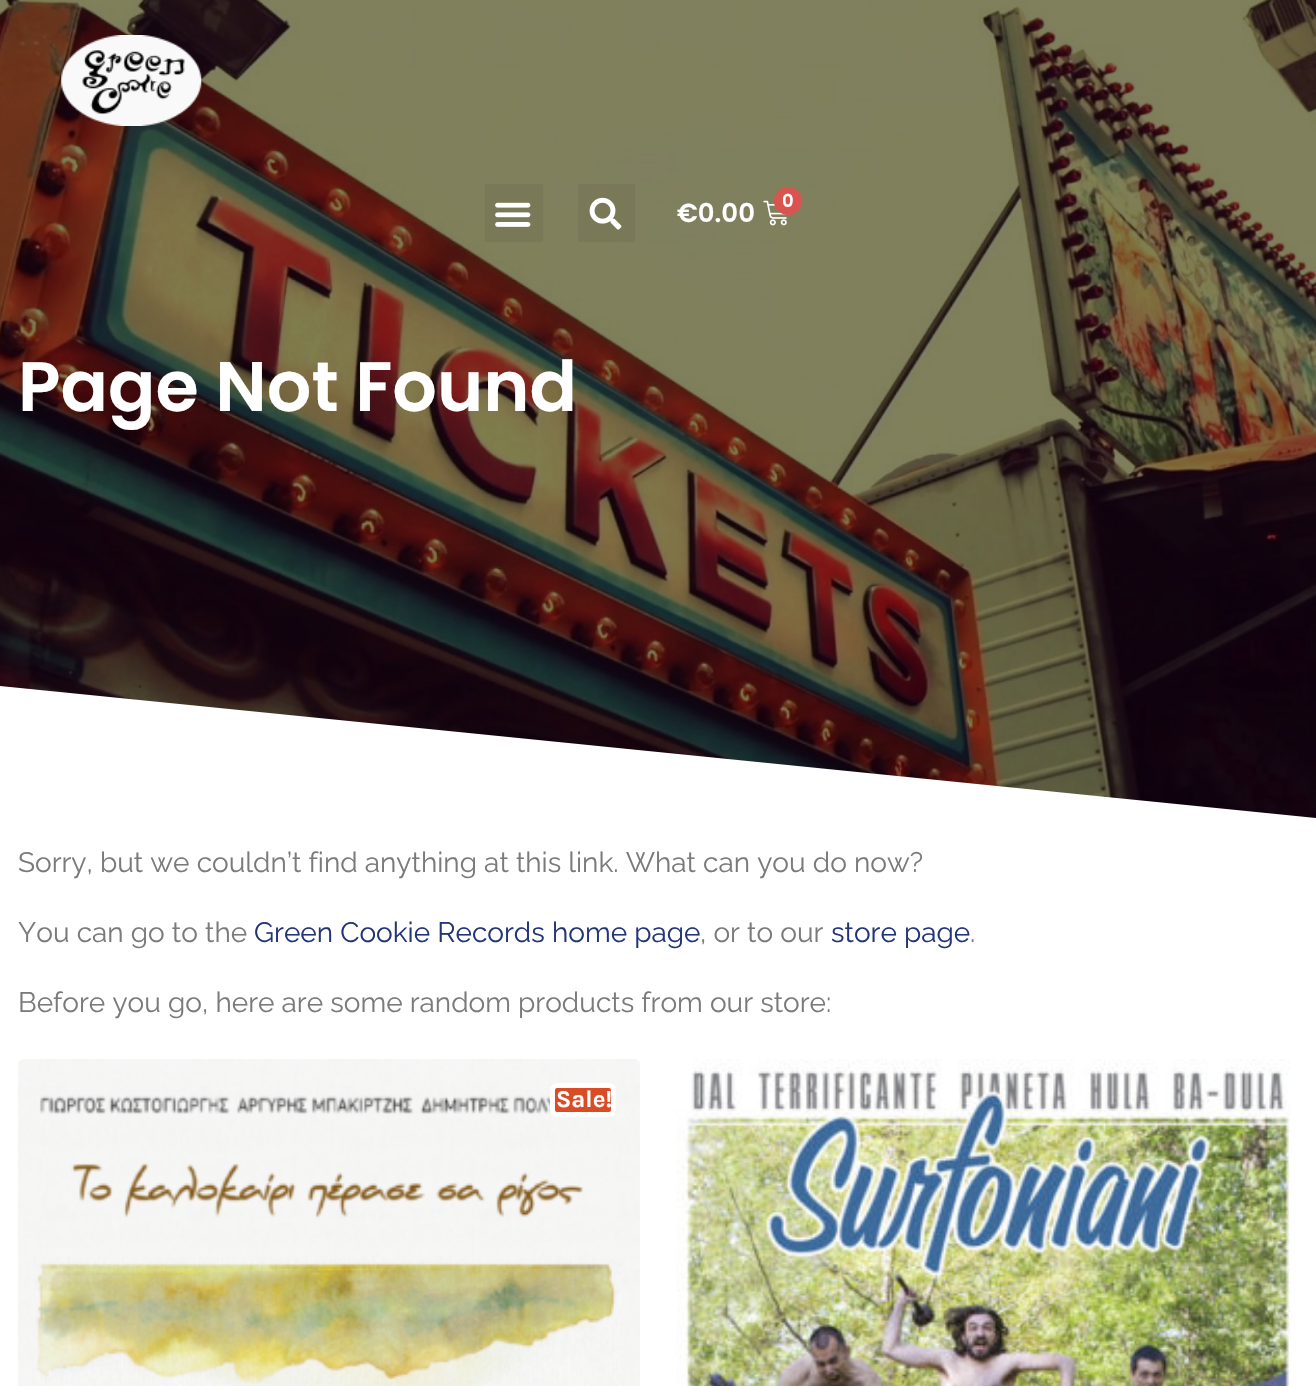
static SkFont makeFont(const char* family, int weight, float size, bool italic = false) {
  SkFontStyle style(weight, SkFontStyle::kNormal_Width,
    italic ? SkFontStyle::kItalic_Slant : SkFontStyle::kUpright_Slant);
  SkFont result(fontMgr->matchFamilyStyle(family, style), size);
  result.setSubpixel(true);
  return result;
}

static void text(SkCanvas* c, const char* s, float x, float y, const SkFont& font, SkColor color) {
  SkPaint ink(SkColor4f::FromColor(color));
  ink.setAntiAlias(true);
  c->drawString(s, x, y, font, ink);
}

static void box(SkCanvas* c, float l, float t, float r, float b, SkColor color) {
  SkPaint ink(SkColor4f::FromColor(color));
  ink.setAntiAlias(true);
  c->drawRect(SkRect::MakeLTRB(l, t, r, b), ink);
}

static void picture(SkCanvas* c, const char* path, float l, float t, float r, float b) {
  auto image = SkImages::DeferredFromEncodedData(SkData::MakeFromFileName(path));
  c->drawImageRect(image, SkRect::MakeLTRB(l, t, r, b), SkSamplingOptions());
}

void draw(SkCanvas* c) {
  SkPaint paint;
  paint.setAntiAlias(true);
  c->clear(0xffffffff);
  picture(c, "img_05.png", 0, 0, 1316, 818);
  picture(c, "img_01.png", 61, 35, 202, 126);
  box(c, 485, 184, 543, 242, 0x0d000000);
  picture(c, "img_02.png", 495, 202, 531, 227);
  box(c, 578, 184, 635, 242, 0x0d000000);
  picture(c, "img_03.png", 589, 197, 622, 230);
  picture(c, "img_04.png", 763, 200, 787, 226);
  paint.setColor(0xffd9534f);
  c->drawCircle(788, 201, 14, paint);
  SkFont face1 = makeFont("Poppins", 600, 18);
  text(c, "0", 782, 207, face1, 0xffffffff);
  SkFont face2 = makeFont("Poppins", 600, 26);
  text(c, "€0.00", 677, 222, face2, 0xffffffff);
  SkFont face3 = makeFont("Poppins", 600, 70);
  text(c, "Page Not Found", 18, 411, face3, 0xffffffff);
  paint.setColor(0xffffffff);
  c->drawPath(SkPathBuilder().moveTo(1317, 818).lineTo(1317, 826).lineTo(-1, 826).lineTo(-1, 686).close().detach(), paint);
  SkFont face4 = makeFont("Raleway", 400, 28);
  text(c, "Sorry, but we couldn’t find anything at this link. What can you do now?", 18, 872, face4, 0xff7a7a7a);
  text(c, "You can go to the", 18, 942, face4, 0xff7a7a7a);
  text(c, "Green Cookie Records home page", 254, 942, face4, 0xff223578);
  text(c, ", or to our", 700, 942, face4, 0xff7a7a7a);
  text(c, "store page", 831, 942, face4, 0xff223578);
  text(c, ".", 970, 942, face4, 0xff7a7a7a);
  text(c, "Before you go, here are some random products from our store:", 18, 1012, face4, 0xff7a7a7a);
  picture(c, "img_06.png", 18, 1059, 640, 1386);
  paint.setColor(0xffda4c26);
  c->drawRoundRect(SkRect::MakeLTRB(552.5f, 1085.5f, 613.5f, 1114.5f), 4.5f, 4.5f, paint);
  paint.setStyle(SkPaint::kStroke_Style);
  paint.setStrokeWidth(5);
  paint.setColor(0xffffffff);
  c->drawRoundRect(SkRect::MakeLTRB(552.5f, 1085.5f, 613.5f, 1114.5f), 4.5f, 4.5f, paint);
  SkFont face5 = makeFont("Karla", 700, 24);
  text(c, "Sale!", 556, 1107, face5, 0xffffffff);
  picture(c, "img_07.png", 676, 1059, 1291, 1386);
}
